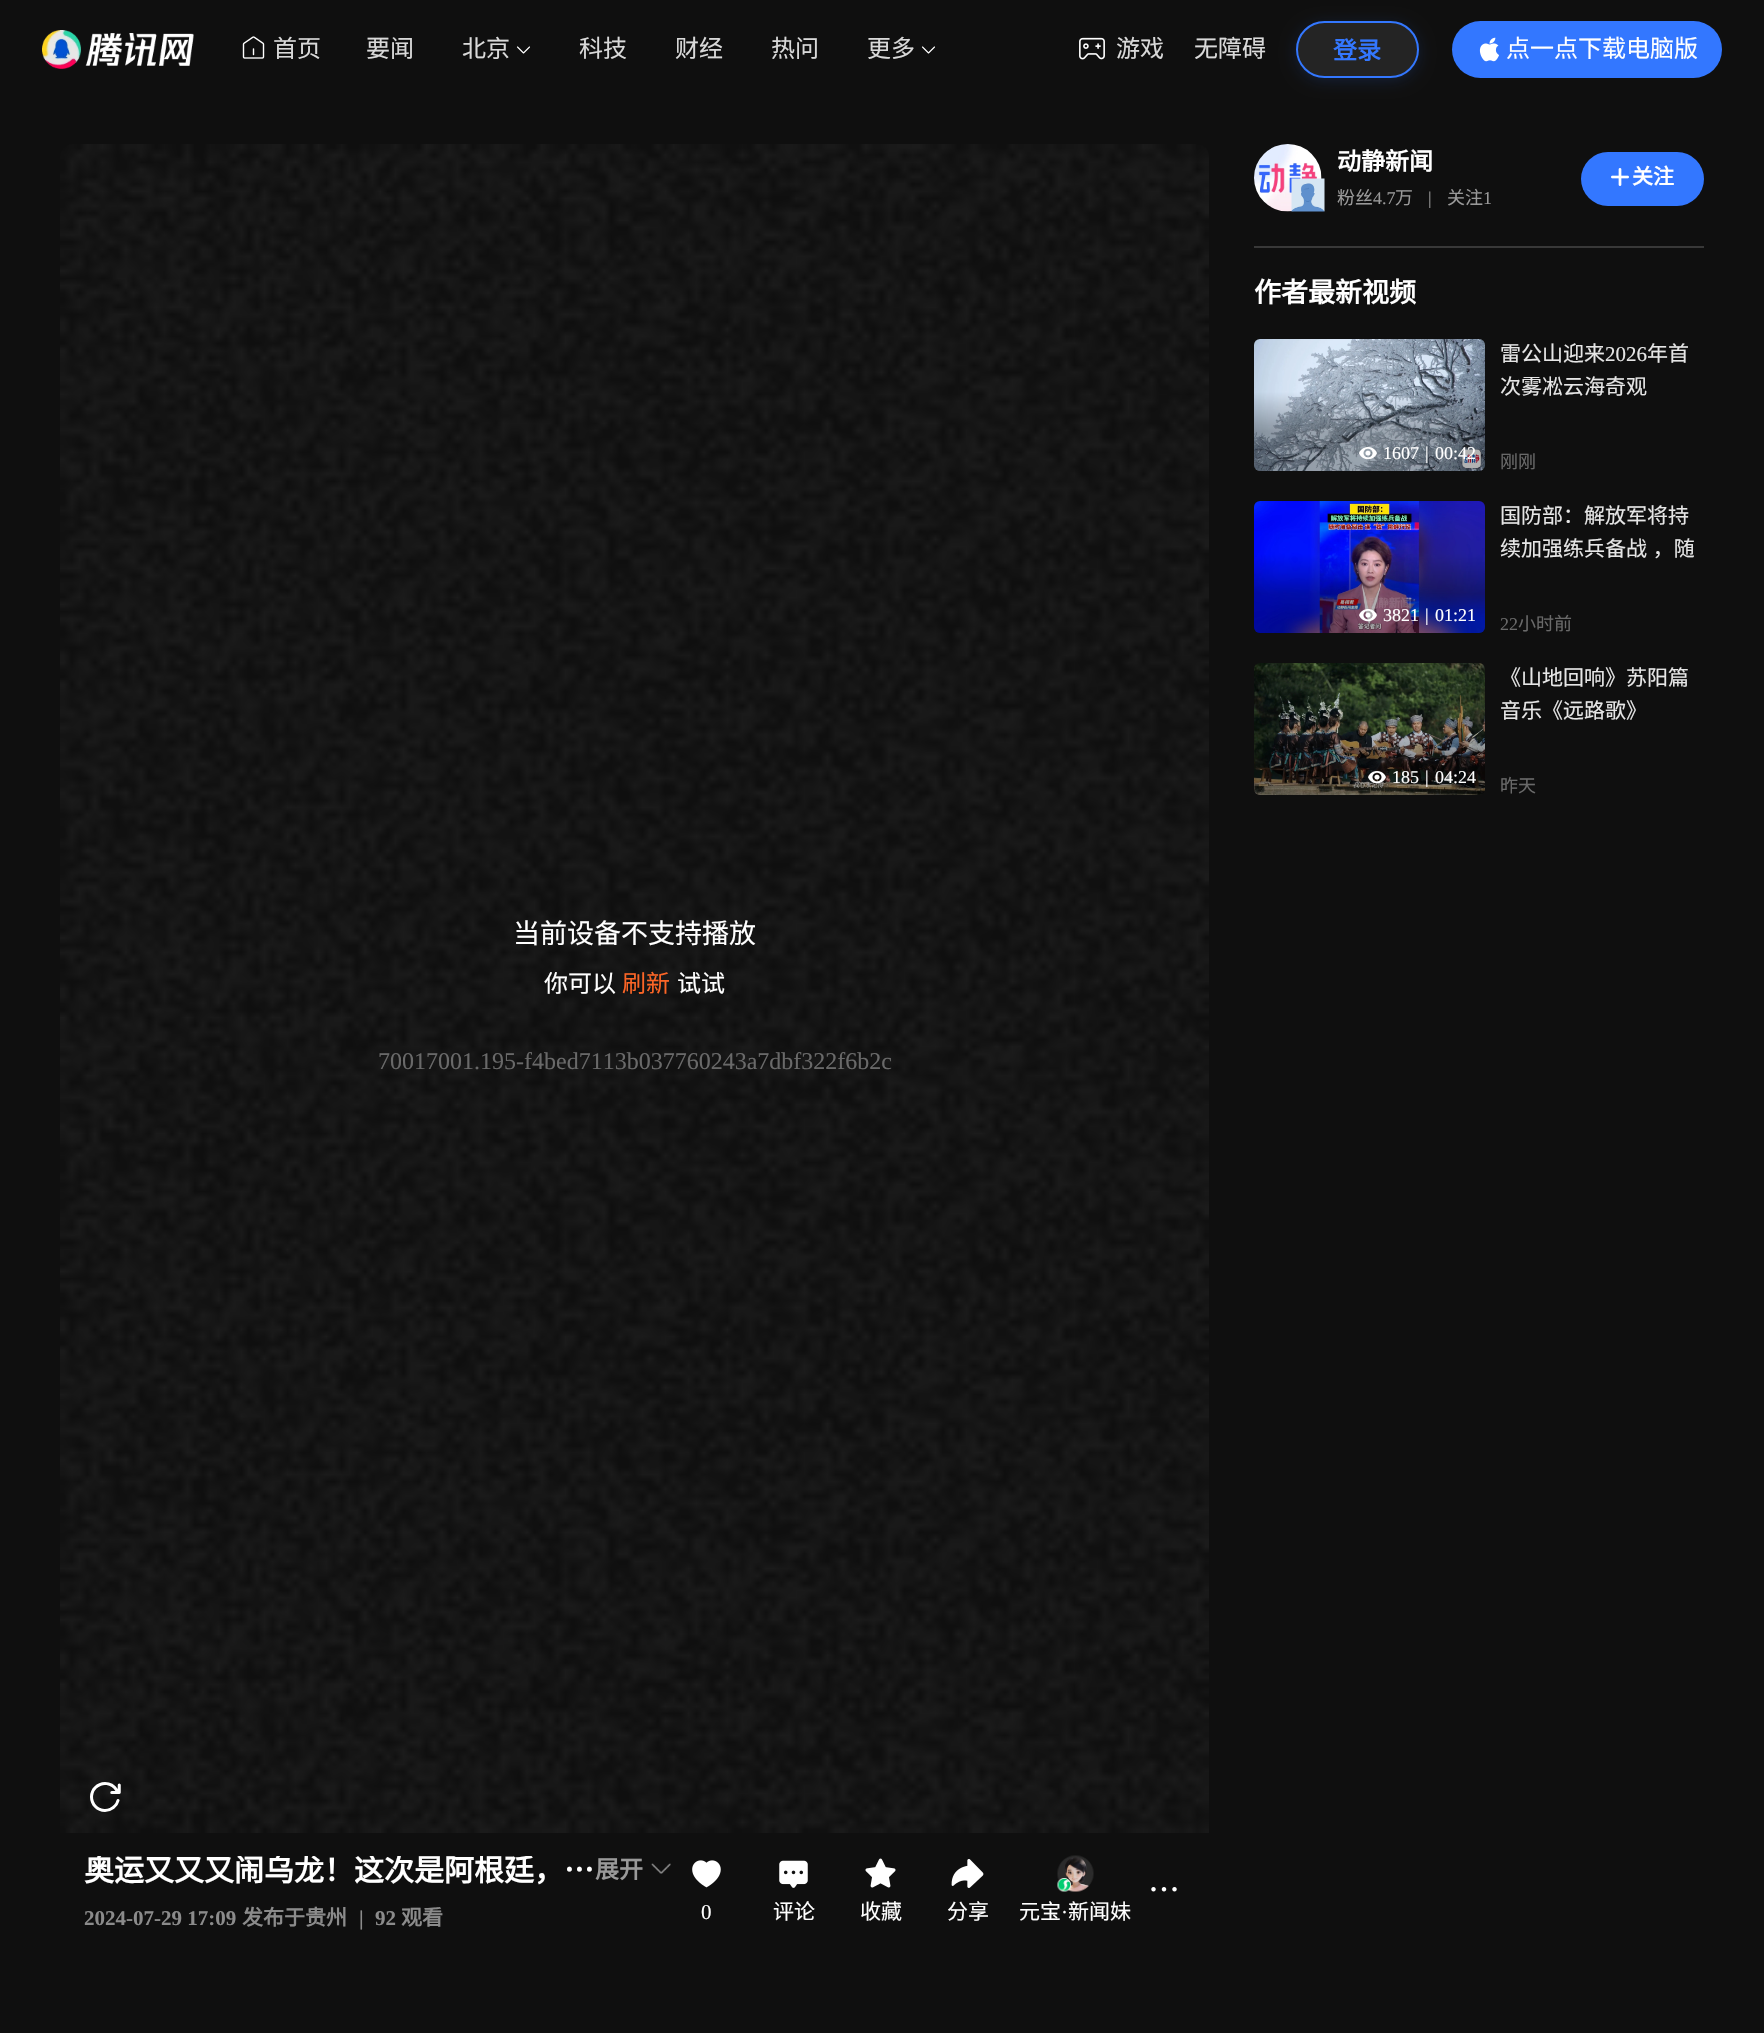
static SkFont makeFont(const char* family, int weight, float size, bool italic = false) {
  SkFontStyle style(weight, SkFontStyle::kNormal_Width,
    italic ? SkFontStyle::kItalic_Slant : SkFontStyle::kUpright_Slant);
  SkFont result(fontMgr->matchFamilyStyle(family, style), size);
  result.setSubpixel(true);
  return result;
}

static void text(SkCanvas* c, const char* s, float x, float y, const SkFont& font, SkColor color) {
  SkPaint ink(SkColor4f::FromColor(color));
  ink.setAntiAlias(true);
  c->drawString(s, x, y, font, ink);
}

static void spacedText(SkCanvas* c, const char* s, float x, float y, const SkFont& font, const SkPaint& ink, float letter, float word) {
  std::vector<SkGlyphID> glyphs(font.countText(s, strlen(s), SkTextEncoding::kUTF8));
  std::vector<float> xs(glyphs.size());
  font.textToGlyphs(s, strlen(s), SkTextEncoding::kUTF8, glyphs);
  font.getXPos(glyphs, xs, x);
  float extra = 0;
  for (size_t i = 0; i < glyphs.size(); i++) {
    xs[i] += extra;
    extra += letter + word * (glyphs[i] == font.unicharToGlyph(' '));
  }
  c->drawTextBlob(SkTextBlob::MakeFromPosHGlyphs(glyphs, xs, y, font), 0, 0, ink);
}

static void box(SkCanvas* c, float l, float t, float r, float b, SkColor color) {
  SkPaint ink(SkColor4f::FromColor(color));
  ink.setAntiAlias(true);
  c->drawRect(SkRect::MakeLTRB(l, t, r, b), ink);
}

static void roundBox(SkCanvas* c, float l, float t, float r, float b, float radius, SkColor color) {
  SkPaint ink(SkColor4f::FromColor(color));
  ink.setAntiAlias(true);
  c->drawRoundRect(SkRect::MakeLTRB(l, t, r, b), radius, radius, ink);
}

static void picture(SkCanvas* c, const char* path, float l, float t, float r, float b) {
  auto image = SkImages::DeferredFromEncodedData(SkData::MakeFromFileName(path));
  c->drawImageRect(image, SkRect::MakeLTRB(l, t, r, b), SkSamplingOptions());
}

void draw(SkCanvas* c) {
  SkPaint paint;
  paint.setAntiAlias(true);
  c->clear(0xff0f0f0f);
  picture(c, "img_01.png", 42, 30, 194, 69);
  picture(c, "img_02.png", 242, 36, 265, 59);
  SkFont face1 = makeFont("Noto Sans CJK SC", 400, 24);
  text(c, "首页", 273, 57, face1, 0xffd9d9d9);
  text(c, "要闻", 366, 57, face1, 0xffd9d9d9);
  text(c, "北京", 462, 57, face1, 0xffd9d9d9);
  paint.setStyle(SkPaint::kStroke_Style);
  paint.setStrokeWidth(1.1f);
  paint.setStrokeCap(SkPaint::kRound_Cap);
  paint.setStrokeJoin(SkPaint::kRound_Join);
  paint.setColor(0xffffffff);
  c->drawPath(SkPathBuilder().moveTo(529.5f, 47).lineTo(523.5f, 53).lineTo(517.5f, 47).detach(), paint);
  text(c, "科技", 579, 57, face1, 0xffd9d9d9);
  text(c, "财经", 675, 57, face1, 0xffd9d9d9);
  text(c, "热问", 771, 57, face1, 0xffd9d9d9);
  text(c, "更多", 867, 57, face1, 0xffd9d9d9);
  c->drawPath(SkPathBuilder().moveTo(934.5f, 47).lineTo(928.5f, 53).lineTo(922.5f, 47).detach(), paint);
  picture(c, "img_03.png", 1079, 37, 1105, 60);
  text(c, "游戏", 1116, 57, face1, 0xffd9d9d9);
  text(c, "无障碍", 1194, 57, face1, 0xffd9d9d9);
  c->save();
  c->clipPath(SkPathBuilder(SkPathFillType::kEvenOdd).moveTo(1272, 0).lineTo(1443, 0).lineTo(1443, 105).lineTo(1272, 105).close().moveTo(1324.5f, 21).lineTo(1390.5f, 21).cubicTo(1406, 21, 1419, 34, 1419, 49.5f).cubicTo(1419, 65, 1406, 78, 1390.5f, 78).lineTo(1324.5f, 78).cubicTo(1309, 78, 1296, 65, 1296, 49.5f).cubicTo(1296, 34, 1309, 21, 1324.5f, 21).close().detach(), true);
  paint.setStyle(SkPaint::kFill_Style);
  paint.setColor(0x293377ff);
  paint.setMaskFilter(SkMaskFilter::MakeBlur(kNormal_SkBlurStyle, 7.5f));
  c->drawRoundRect(SkRect::MakeLTRB(1296, 24, 1419, 81), 28.5f, 28.5f, paint);
  paint.setMaskFilter(nullptr);
  c->restore();
  paint.setColor(0x1ad9d9d9);
  c->drawRoundRect(SkRect::MakeLTRB(1297, 22, 1418, 77), 27.5f, 27.5f, paint);
  paint.setStyle(SkPaint::kStroke_Style);
  paint.setStrokeWidth(2);
  paint.setStrokeCap(SkPaint::kButt_Cap);
  paint.setStrokeJoin(SkPaint::kMiter_Join);
  paint.setColor(0xff3377ff);
  c->drawRoundRect(SkRect::MakeLTRB(1297, 22, 1418, 77), 27.5f, 27.5f, paint);
  SkFont face2 = makeFont("Noto Sans CJK SC", 700, 24);
  text(c, "登录", 1333, 59, face2, 0xff3377ff);
  roundBox(c, 1452, 21, 1722, 78, 28.5f, 0xff3377ff);
  picture(c, "img_04.png", 1479, 37, 1499, 62);
  text(c, "点一点下载电脑版", 1506, 57, face1, 0xffffffff);
  picture(c, "img_05.png", 1254, 144, 1322, 212);
  picture(c, "img_06.png", 1291, 178, 1325, 212);
  text(c, "动静新闻", 1337, 170, face2, 0xffffffff);
  SkFont face3 = makeFont("Noto Sans CJK SC", 400, 18);
  text(c, "粉丝", 1337, 204, face3, 0xff999999);
  SkFont face4 = makeFont("Liberation Serif", 400, 18);
  text(c, "4.7", 1373, 204, face4, 0xff999999);
  text(c, "万", 1395, 204, face3, 0xff999999);
  text(c, "|", 1428, 204, face4, 0xff999999);
  text(c, "关注", 1447, 204, face3, 0xff999999);
  text(c, "1", 1483, 204, face4, 0xff999999);
  roundBox(c, 1581, 152, 1704, 206, 27, 0xff3377ff);
  picture(c, "img_07.png", 1611, 168, 1629, 186);
  SkFont face5 = makeFont("Noto Sans CJK SC", 700, 21);
  text(c, "关注", 1632, 184, face5, 0xffffffff);
  box(c, 1254, 246, 1704, 248, 0xff383838);
  SkFont face6 = makeFont("Noto Sans CJK SC", 700, 27);
  text(c, "作者最新视频", 1254, 302, face6, 0xffffffff);
  picture(c, "img_08.png", 1254, 339, 1485, 471);
  paint.setStyle(SkPaint::kFill_Style);
  {
    const SkColor colors[] = {0x4d000000, 0x00000000};
    const float stops[] = {0.3f, 0.6f};
    const SkPoint ends[] = {{1370, 471}, {1370, 339}};
    paint.setShader(SkGradientShader::MakeLinear(ends, colors, stops, 2, SkTileMode::kClamp));
    paint.setAlpha(255);
  }
  c->drawRoundRect(SkRect::MakeLTRB(1254, 339, 1485, 471), 6, 6, paint);
  picture(c, "img_09.png", 1359, 447, 1377, 460);
  text(c, "1607", 1383, 459, face4, 0xffffffff);
  text(c, "|", 1425, 459, face4, 0xffffffff);
  text(c, "00:42", 1435, 459, face4, 0xffffffff);
  SkFont face7 = makeFont("Noto Sans CJK SC", 400, 21);
  text(c, "雷公山迎来", 1500, 361, face7, 0xffe6e6e6);
  SkFont face8 = makeFont("Liberation Serif", 400, 21);
  text(c, "2026", 1605, 361, face8, 0xffe6e6e6);
  text(c, "年首", 1647, 361, face7, 0xffe6e6e6);
  text(c, "次雾凇云海奇观", 1500, 394, face7, 0xffe6e6e6);
  text(c, "刚刚", 1500, 468, face3, 0xff696969);
  picture(c, "img_10.png", 1254, 501, 1485, 633);
  {
    const SkColor colors[] = {0x4d000000, 0x00000000};
    const float stops[] = {0.3f, 0.6f};
    const SkPoint ends[] = {{1370, 633}, {1370, 501}};
    paint.setShader(SkGradientShader::MakeLinear(ends, colors, stops, 2, SkTileMode::kClamp));
    paint.setAlpha(255);
  }
  c->drawRoundRect(SkRect::MakeLTRB(1254, 501, 1485, 633), 6, 6, paint);
  picture(c, "img_11.png", 1359, 609, 1377, 622);
  text(c, "3821", 1383, 621, face4, 0xffffffff);
  text(c, "|", 1425, 621, face4, 0xffffffff);
  text(c, "01:21", 1435, 621, face4, 0xffffffff);
  text(c, "国防部：解放军将持", 1500, 523, face7, 0xffe6e6e6);
  paint.setShader(nullptr);
  paint.setColor(0xffe6e6e6);
  spacedText(c, "续加强练兵备战 ，随", 1500, 556, face7, paint, 0, 1);
  text(c, "22", 1500, 630, face4, 0xff696969);
  text(c, "小时前", 1518, 630, face3, 0xff696969);
  picture(c, "img_12.png", 1254, 663, 1485, 795);
  {
    const SkColor colors[] = {0x4d000000, 0x00000000};
    const float stops[] = {0.3f, 0.6f};
    const SkPoint ends[] = {{1370, 795}, {1370, 663}};
    paint.setShader(SkGradientShader::MakeLinear(ends, colors, stops, 2, SkTileMode::kClamp));
    paint.setAlpha(255);
  }
  c->drawRoundRect(SkRect::MakeLTRB(1254, 663, 1485, 795), 6, 6, paint);
  picture(c, "img_13.png", 1368, 771, 1386, 784);
  text(c, "185", 1392, 783, face4, 0xffffffff);
  text(c, "|", 1425, 783, face4, 0xffffffff);
  text(c, "04:24", 1435, 783, face4, 0xffffffff);
  text(c, "《山地回响》苏阳篇", 1500, 685, face7, 0xffe6e6e6);
  text(c, "音乐《远路歌》", 1500, 718, face7, 0xffe6e6e6);
  text(c, "昨天", 1500, 792, face3, 0xff696969);
  picture(c, "img_14.png", 60, 144, 1209, 1833);
  SkFont face9 = makeFont("Noto Sans CJK SC", 400, 27);
  text(c, "当前设备不支持播放", 513, 943, face9, 0xffffffff);
  text(c, "你可以", 544, 992, face1, 0xffffffff);
  text(c, "刷新", 622, 992, face1, 0xfffc6526);
  text(c, "试试", 677, 992, face1, 0xffffffff);
  SkFont face10 = makeFont("Liberation Serif", 400, 24);
  text(c, "70017001.195-f4bed7113b037760243a7dbf322f6b2c", 378, 1069, face10, 0xff696969);
  c->save();
  c->clipRect(SkRect::MakeLTRB(84, 1856, 596, 1886));
  SkFont face11 = makeFont("Noto Sans CJK SC", 700, 30);
  text(c, "奥运又又又闹乌龙！这次是阿根廷，…", 84, 1881, face11, 0xffffffff);
  c->restore();
  text(c, "展开", 595, 1878, face2, 0xff999999);
  picture(c, "img_15.png", 651, 1863, 671, 1874);
  SkFont face12 = makeFont("Liberation Serif", 700, 21);
  text(c, "2024-07-29 17:09", 84, 1925, face12, 0xff8b8b8b);
  text(c, "发布于贵州", 242, 1925, face5, 0xff8b8b8b);
  text(c, "|", 359, 1925, face12, 0xff8b8b8b);
  text(c, "92", 375, 1925, face12, 0xff8b8b8b);
  text(c, "观看", 401, 1925, face5, 0xff8b8b8b);
  picture(c, "img_16.png", 1151, 1887, 1177, 1892);
  picture(c, "img_17.png", 692, 1860, 721, 1888);
  text(c, "0", 701, 1919, face8, 0xffffffff);
  picture(c, "img_18.png", 779, 1860, 808, 1888);
  text(c, "评论", 773, 1919, face7, 0xffffffff);
  picture(c, "img_19.png", 865, 1858, 896, 1888);
  text(c, "收藏", 860, 1919, face7, 0xffffffff);
  picture(c, "img_20.png", 951, 1859, 984, 1888);
  text(c, "分享", 947, 1919, face7, 0xffffffff);
  picture(c, "img_21.png", 1057, 1855, 1094, 1892);
  picture(c, "img_22.png", 1057, 1878, 1071, 1892);
  text(c, "元宝", 1019, 1919, face7, 0xffffffff);
  text(c, "·", 1061, 1919, face8, 0xffffffff);
  text(c, "新闻妹", 1068, 1919, face7, 0xffffffff);
}
